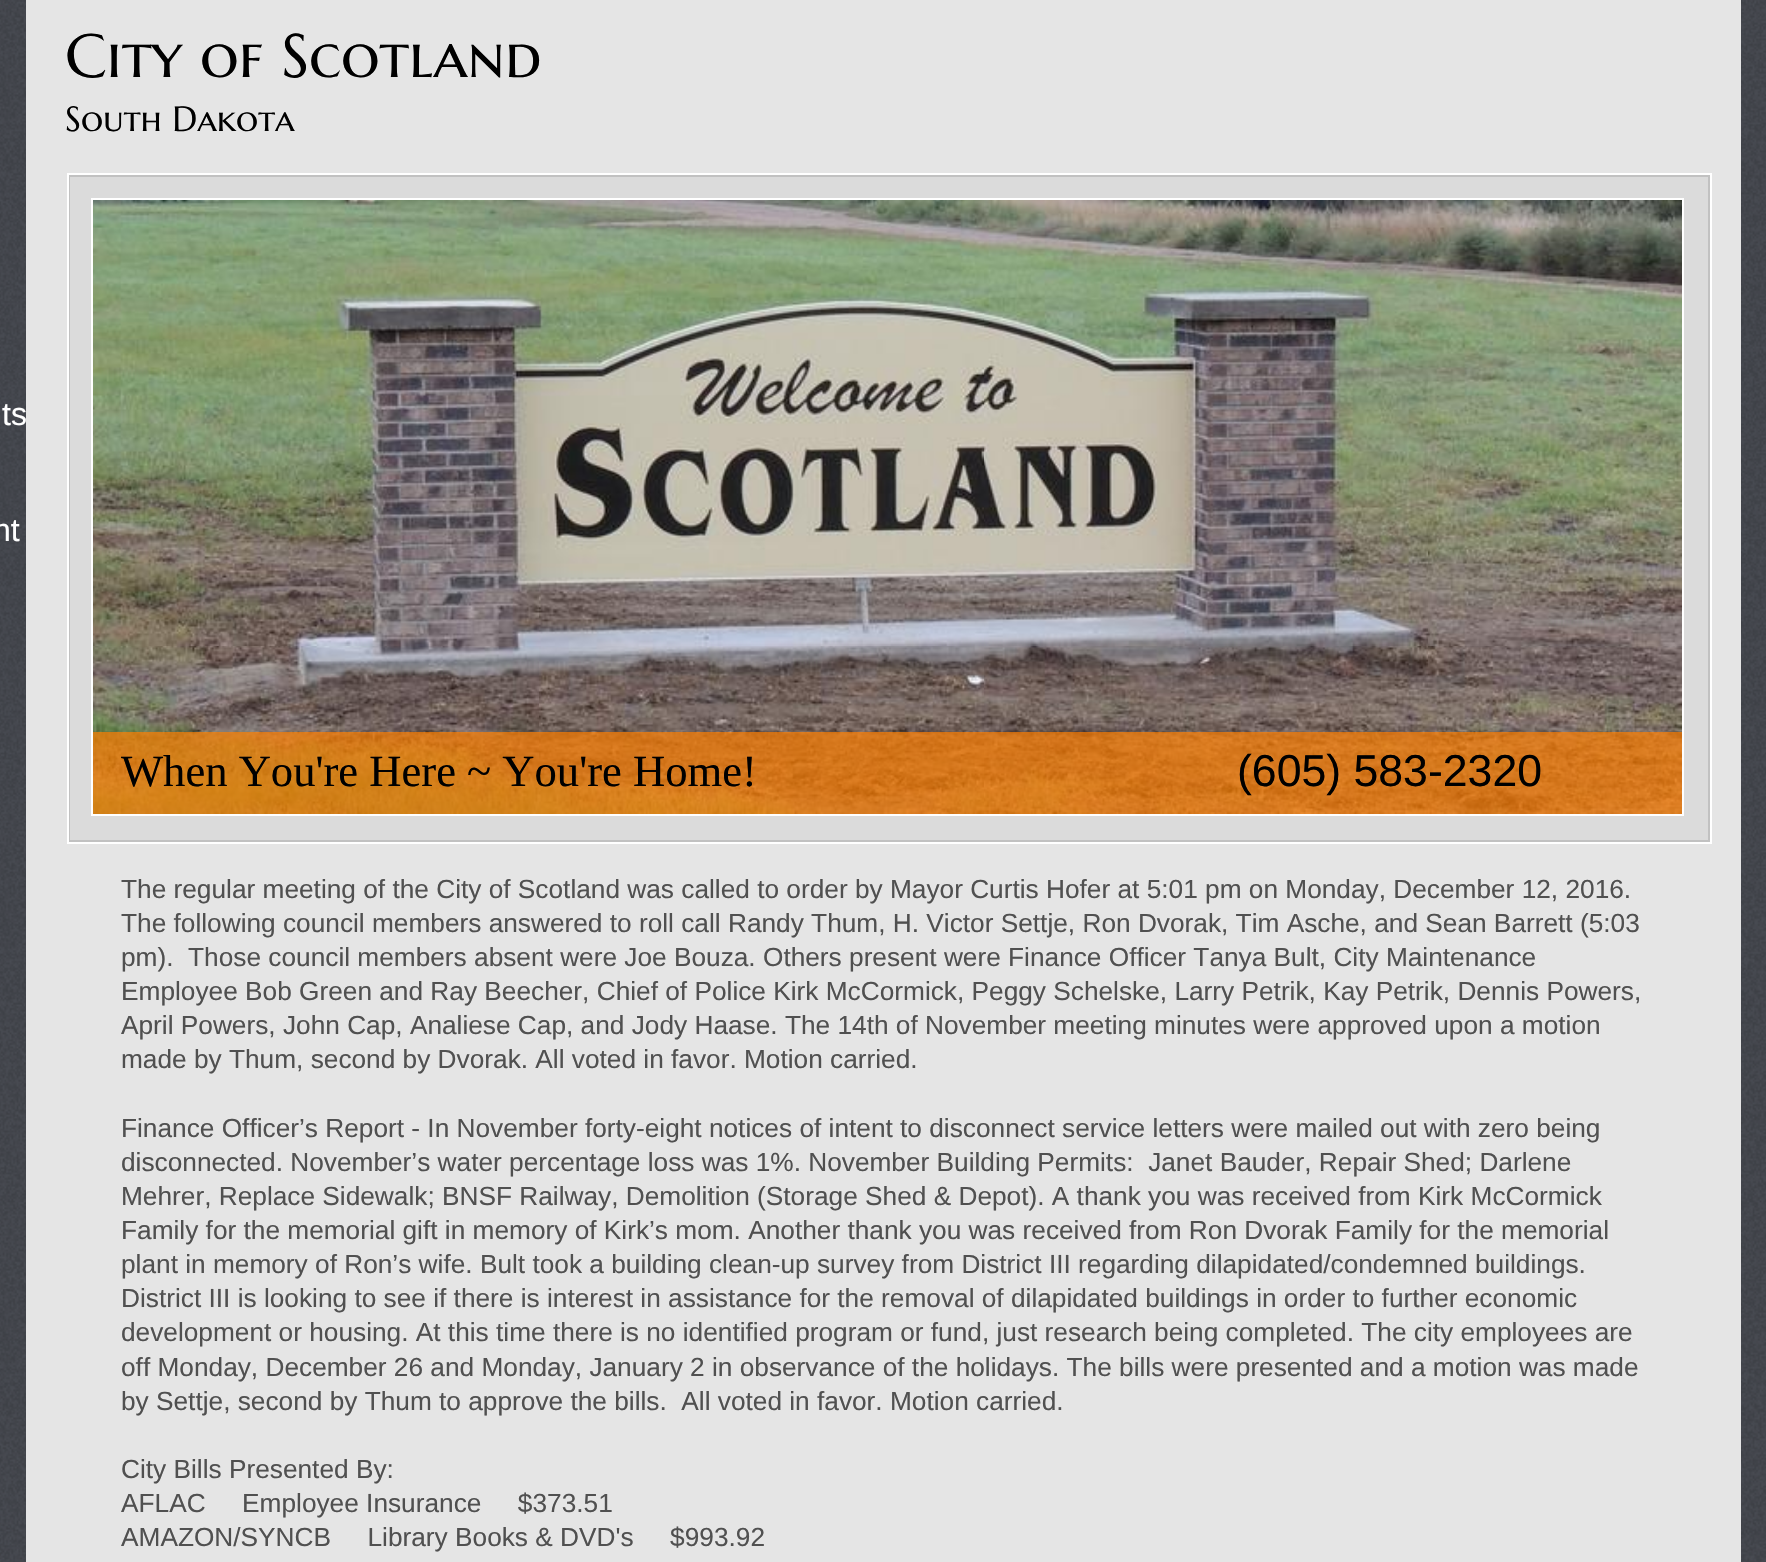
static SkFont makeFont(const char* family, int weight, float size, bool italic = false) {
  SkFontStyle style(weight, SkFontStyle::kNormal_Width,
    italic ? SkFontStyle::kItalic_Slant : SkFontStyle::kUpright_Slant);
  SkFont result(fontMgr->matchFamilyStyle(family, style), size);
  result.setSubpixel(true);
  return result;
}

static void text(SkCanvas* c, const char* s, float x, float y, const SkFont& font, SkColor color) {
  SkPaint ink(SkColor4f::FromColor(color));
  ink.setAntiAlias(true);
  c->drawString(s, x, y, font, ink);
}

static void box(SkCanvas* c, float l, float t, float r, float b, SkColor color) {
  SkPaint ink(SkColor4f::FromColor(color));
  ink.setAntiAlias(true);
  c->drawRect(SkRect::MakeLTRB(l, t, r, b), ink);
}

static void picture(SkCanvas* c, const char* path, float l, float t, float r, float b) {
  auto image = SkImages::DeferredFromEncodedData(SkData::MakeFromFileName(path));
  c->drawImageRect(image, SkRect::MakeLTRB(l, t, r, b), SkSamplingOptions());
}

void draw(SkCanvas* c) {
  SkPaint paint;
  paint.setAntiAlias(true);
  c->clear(0xffffffff);
  picture(c, "img_01.png", 0, 0, 1766, 1562);
  box(c, 26, 0, 1741, 1562, 0xffe5e5e5);
  SkFont face1 = makeFont("Marcellus SC", 400, 61.25f);
  text(c, "City of Scotland", 65, 77, face1, 0xff000000);
  SkFont face2 = makeFont("Marcellus SC", 400, 35);
  text(c, "South Dakota", 65, 131, face2, 0xff000000);
  paint.setColor(0xffdbdbdb);
  c->drawRect(SkRect::MakeLTRB(69, 176, 1709, 841), paint);
  paint.setStyle(SkPaint::kStroke_Style);
  paint.setStrokeWidth(2);
  paint.setColor(0xffc1c1c1);
  c->drawRect(SkRect::MakeLTRB(69, 176, 1709, 841), paint);
  paint.setColor(0xffffffff);
  c->drawRect(SkRect::MakeLTRB(68, 174, 1711, 843), paint);
  SkFont face3 = makeFont("Liberation Sans", 400, 32);
  text(c, "ts", 2, 425, face3, 0xffffffff);
  text(c, "nt", -7, 541, face3, 0xffffffff);
  c->drawRect(SkRect::MakeLTRB(92, 199, 1683, 815), paint);
  picture(c, "img_02.png", 93, 200, 1682, 814);
  box(c, 93, 732, 1682, 814, 0xb3ff7f00);
  SkFont face4 = makeFont("Liberation Serif", 400, 44.6f);
  text(c, "When You're Here ~ You're Home!", 121, 786, face4, 0xff000000);
  SkFont face5 = makeFont("Liberation Sans", 400, 44.6f);
  text(c, "(605) 583-2320", 1237, 786, face5, 0xff000000);
  SkFont face6 = makeFont("Liberation Sans", 400, 26.25f);
  text(c, "The regular meeting of the City of Scotland was called to order by Mayor Curtis Hofer at 5:01 pm on Monday, December 12, 2016.", 121, 898, face6, 0xff505050);
  text(c, "The following council members answered to roll call Randy Thum, H. Victor Settje, Ron Dvorak, Tim Asche, and Sean Barrett (5:03", 121, 932, face6, 0xff505050);
  text(c, "pm).  Those council members absent were Joe Bouza. Others present were Finance Officer Tanya Bult, City Maintenance", 121, 966, face6, 0xff505050);
  text(c, "Employee Bob Green and Ray Beecher, Chief of Police Kirk McCormick, Peggy Schelske, Larry Petrik, Kay Petrik, Dennis Powers,", 121, 1000, face6, 0xff505050);
  text(c, "April Powers, John Cap, Analiese Cap, and Jody Haase. The 14th of November meeting minutes were approved upon a motion", 121, 1034, face6, 0xff505050);
  text(c, "made by Thum, second by Dvorak. All voted in favor. Motion carried.", 121, 1068, face6, 0xff505050);
  text(c, "Finance Officer’s Report - In November forty-eight notices of intent to disconnect service letters were mailed out with zero being", 121, 1137, face6, 0xff505050);
  text(c, "disconnected. November’s water percentage loss was 1%. November Building Permits:  Janet Bauder, Repair Shed; Darlene", 121, 1171, face6, 0xff505050);
  text(c, "Mehrer, Replace Sidewalk; BNSF Railway, Demolition (Storage Shed & Depot). A thank you was received from Kirk McCormick", 121, 1205, face6, 0xff505050);
  text(c, "Family for the memorial gift in memory of Kirk’s mom. Another thank you was received from Ron Dvorak Family for the memorial", 121, 1239, face6, 0xff505050);
  text(c, "plant in memory of Ron’s wife. Bult took a building clean-up survey from District III regarding dilapidated/condemned buildings.", 121, 1273, face6, 0xff505050);
  text(c, "District III is looking to see if there is interest in assistance for the removal of dilapidated buildings in order to further economic", 121, 1307, face6, 0xff505050);
  text(c, "development or housing. At this time there is no identified program or fund, just research being completed. The city employees are", 121, 1341, face6, 0xff505050);
  text(c, "off Monday, December 26 and Monday, January 2 in observance of the holidays. The bills were presented and a motion was made", 121, 1376, face6, 0xff505050);
  text(c, "by Settje, second by Thum to approve the bills.  All voted in favor. Motion carried.", 121, 1410, face6, 0xff505050);
  text(c, "City Bills Presented By:", 121, 1478, face6, 0xff505050);
  text(c, "AFLAC     Employee Insurance     $373.51", 121, 1512, face6, 0xff505050);
  text(c, "AMAZON/SYNCB     Library Books & DVD's     $993.92", 121, 1546, face6, 0xff505050);
}
